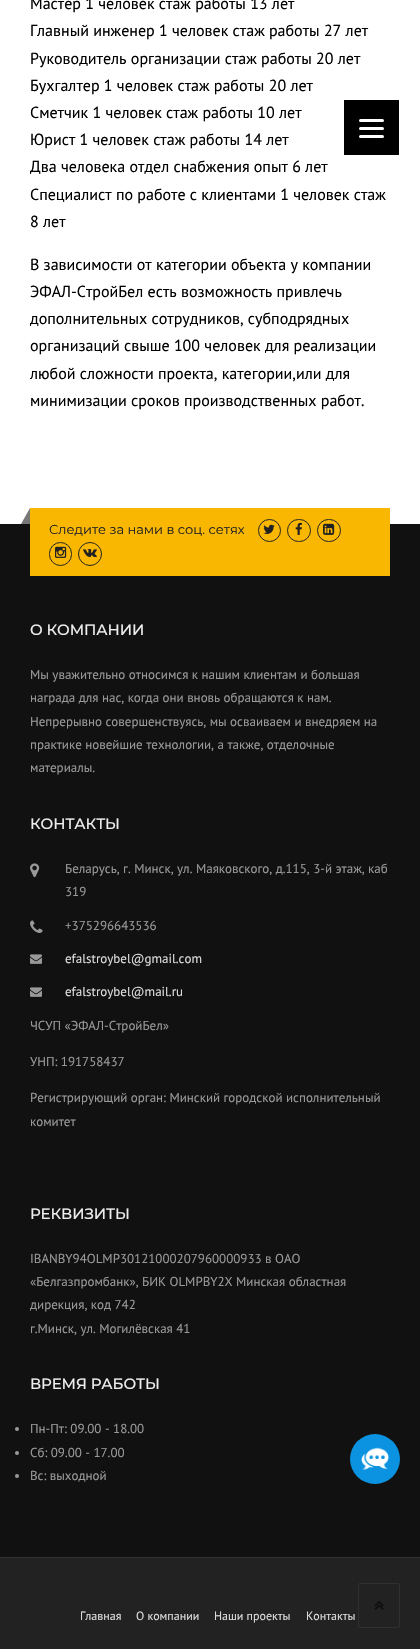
static SkFont makeFont(const char* family, int weight, float size, bool italic = false) {
  SkFontStyle style(weight, SkFontStyle::kNormal_Width,
    italic ? SkFontStyle::kItalic_Slant : SkFontStyle::kUpright_Slant);
  SkFont result(fontMgr->matchFamilyStyle(family, style), size);
  result.setSubpixel(true);
  return result;
}

static void text(SkCanvas* c, const char* s, float x, float y, const SkFont& font, SkColor color) {
  SkPaint ink(SkColor4f::FromColor(color));
  ink.setAntiAlias(true);
  c->drawString(s, x, y, font, ink);
}

static void spacedText(SkCanvas* c, const char* s, float x, float y, const SkFont& font, const SkPaint& ink, float letter, float word) {
  std::vector<SkGlyphID> glyphs(font.countText(s, strlen(s), SkTextEncoding::kUTF8));
  std::vector<float> xs(glyphs.size());
  font.textToGlyphs(s, strlen(s), SkTextEncoding::kUTF8, glyphs);
  font.getXPos(glyphs, xs, x);
  float extra = 0;
  for (size_t i = 0; i < glyphs.size(); i++) {
    xs[i] += extra;
    extra += letter + word * (glyphs[i] == font.unicharToGlyph(' '));
  }
  c->drawTextBlob(SkTextBlob::MakeFromPosHGlyphs(glyphs, xs, y, font), 0, 0, ink);
}

static void box(SkCanvas* c, float l, float t, float r, float b, SkColor color) {
  SkPaint ink(SkColor4f::FromColor(color));
  ink.setAntiAlias(true);
  c->drawRect(SkRect::MakeLTRB(l, t, r, b), ink);
}

static void roundBox(SkCanvas* c, float l, float t, float r, float b, float radius, SkColor color) {
  SkPaint ink(SkColor4f::FromColor(color));
  ink.setAntiAlias(true);
  c->drawRoundRect(SkRect::MakeLTRB(l, t, r, b), radius, radius, ink);
}

static void picture(SkCanvas* c, const char* path, float l, float t, float r, float b) {
  auto image = SkImages::DeferredFromEncodedData(SkData::MakeFromFileName(path));
  c->drawImageRect(image, SkRect::MakeLTRB(l, t, r, b), SkSamplingOptions());
}

void draw(SkCanvas* c) {
  SkPaint paint;
  paint.setAntiAlias(true);
  c->clear(0xffffffff);
  SkFont face1 = makeFont("PT Sans", 400, 16);
  text(c, "Мастер 1 человек стаж работы 13 лет", 30, 9, face1, 0xff000000);
  text(c, "Главный инженер 1 человек стаж работы 27 лет", 30, 36, face1, 0xff000000);
  text(c, "Руководитель организации стаж работы 20 лет", 30, 64, face1, 0xff000000);
  text(c, "Бухгалтер 1 человек стаж работы 20 лет", 30, 91, face1, 0xff000000);
  text(c, "Сметчик 1 человек стаж работы 10 лет", 30, 118, face1, 0xff000000);
  text(c, "Юрист 1 человек стаж работы 14 лет", 30, 145, face1, 0xff000000);
  text(c, "Два человека отдел снабжения опыт 6 лет", 30, 172, face1, 0xff000000);
  text(c, "Специалист по работе с клиентами 1 человек стаж", 30, 200, face1, 0xff000000);
  text(c, "8 лет", 30, 227, face1, 0xff000000);
  text(c, "В зависимости от категории объекта у компании", 30, 270, face1, 0xff000000);
  text(c, "ЭФАЛ-СтройБел есть возможность привлечь", 30, 297, face1, 0xff000000);
  text(c, "дополнительных сотрудников, субподрядных", 30, 324, face1, 0xff000000);
  text(c, "организаций свыше 100 человек для реализации", 30, 351, face1, 0xff000000);
  text(c, "любой сложности проекта, категории,или для", 30, 379, face1, 0xff000000);
  text(c, "минимизации сроков производственных работ.", 30, 406, face1, 0xff000000);
  box(c, 0, 524, 420, 1557, 0xff111111);
  box(c, 30, 508, 390, 576, 0xfffab702);
  paint.setColor(0xff777777);
  c->drawPath(SkPathBuilder().moveTo(30, 508).lineTo(30, 524).lineTo(21, 524).close().detach(), paint);
  SkFont face2 = makeFont("Montserrat", 400, 13);
  text(c, "Следите за нами в соц. сетях", 49, 534, face2, 0xff222222);
  paint.setStyle(SkPaint::kStroke_Style);
  paint.setStrokeWidth(1);
  paint.setColor(0xff222222);
  c->drawCircle(269.5f, 530.5f, 11, paint);
  picture(c, "img_01.png", 263, 524, 275, 534);
  c->drawRoundRect(SkRect::MakeLTRB(287.5f, 519.5f, 310.5f, 541.5f), 11, 11, paint);
  picture(c, "img_02.png", 295, 522, 302, 535);
  c->drawRoundRect(SkRect::MakeLTRB(317.5f, 519.5f, 340.5f, 541.5f), 11, 11, paint);
  picture(c, "img_03.png", 323, 523, 335, 535);
  c->drawRoundRect(SkRect::MakeLTRB(49.5f, 542.5f, 71.5f, 565.5f), 11, 11, paint);
  picture(c, "img_04.png", 55, 546, 67, 558);
  c->drawCircle(90, 554, 11.5f, paint);
  picture(c, "img_05.png", 83, 549, 97, 557);
  SkFont face3 = makeFont("Montserrat", 500, 15);
  paint.setStyle(SkPaint::kFill_Style);
  paint.setColor(0xffeeeeee);
  spacedText(c, "О КОМПАНИИ", 30, 635, face3, paint, -0.1f, 0);
  SkFont face4 = makeFont("PT Sans", 400, 13);
  text(c, "Мы уважительно относимся к нашим клиентам и большая", 30, 679, face4, 0xff999999);
  text(c, "награда для нас, когда они вновь обращаются к нам.", 30, 702, face4, 0xff999999);
  text(c, "Непрерывно совершенствуясь, мы осваиваем и внедряем на", 30, 726, face4, 0xff999999);
  text(c, "практике новейшие технологии, а также, отделочные", 30, 749, face4, 0xff999999);
  text(c, "материалы.", 30, 772, face4, 0xff999999);
  spacedText(c, "КОНТАКТЫ", 30, 829, face3, paint, -0.1f, 0);
  picture(c, "img_06.png", 30, 863, 40, 878);
  text(c, "Беларусь, г. Минск, ул. Маяковского, д.115, 3-й этаж, каб", 65, 873, face4, 0xff999999);
  text(c, "319", 65, 896, face4, 0xff999999);
  picture(c, "img_07.png", 30, 920, 43, 933);
  text(c, "+375296643536", 65, 930, face4, 0xff999999);
  picture(c, "img_08.png", 30, 954, 42, 964);
  text(c, "efalstroybel@gmail.com", 65, 963, face4, 0xffdddddd);
  picture(c, "img_08.png", 30, 987, 42, 997);
  text(c, "efalstroybel@mail.ru", 65, 996, face4, 0xffdddddd);
  text(c, "ЧСУП «ЭФАЛ-СтройБел»", 30, 1030, face4, 0xff999999);
  text(c, "УНП: 191758437", 30, 1066, face4, 0xff999999);
  text(c, "Регистрирующий орган: Минский городской исполнительный", 30, 1102, face4, 0xff999999);
  text(c, "комитет", 30, 1126, face4, 0xff999999);
  spacedText(c, "РЕКВИЗИТЫ", 30, 1219, face3, paint, -0.1f, 0);
  text(c, "IBANBY94OLMP30121000207960000933 в ОАО", 30, 1263, face4, 0xff999999);
  text(c, "«Белгазпромбанк», БИК OLMPBY2X Минская областная", 30, 1286, face4, 0xff999999);
  text(c, "дирекция, код 742", 30, 1309, face4, 0xff999999);
  text(c, "г.Минск, ул. Могилёвская 41", 30, 1333, face4, 0xff999999);
  spacedText(c, "ВРЕМЯ РАБОТЫ", 30, 1389, face3, paint, -0.1f, 0);
  paint.setColor(0xff999999);
  c->drawCircle(17, 1429, 2, paint);
  text(c, "Пн-Пт: 09.00 - 18.00", 30, 1433, face4, 0xff999999);
  c->drawCircle(17, 1453, 2, paint);
  text(c, "Сб: 09.00 - 17.00", 30, 1457, face4, 0xff999999);
  c->drawCircle(17, 1476, 2, paint);
  text(c, "Вс: выходной", 30, 1480, face4, 0xff999999);
  paint.setColor(0xff0b93e1);
  c->drawCircle(375, 1459, 25, paint);
  picture(c, "img_09.png", 361, 1447, 389, 1470);
  box(c, 0, 1558, 420, 1649, 0xff222222);
  box(c, 0, 1557, 420, 1558, 0xff333333);
  SkFont face5 = makeFont("PT Sans", 400, 12);
  text(c, "Главная", 80, 1620, face5, 0xffdddddd);
  text(c, "О компании", 136, 1620, face5, 0xffdddddd);
  text(c, "Наши проекты", 214, 1620, face5, 0xffdddddd);
  text(c, "Контакты", 306, 1620, face5, 0xffdddddd);
  box(c, 344, 100, 399, 155, 0xff000000);
  roundBox(c, 359, 127, 384, 130, 1.5f, 0xffffffff);
  roundBox(c, 359, 119, 384, 122, 1.5f, 0xffffffff);
  roundBox(c, 359, 135, 384, 138, 1.5f, 0xffffffff);
  paint.setStyle(SkPaint::kStroke_Style);
  paint.setColor(0xff303030);
  c->drawRoundRect(SkRect::MakeLTRB(358.5f, 1583.5f, 399.5f, 1627.5f), 1.5f, 1.5f, paint);
  picture(c, "img_10.png", 374, 1601, 384, 1610);
}
